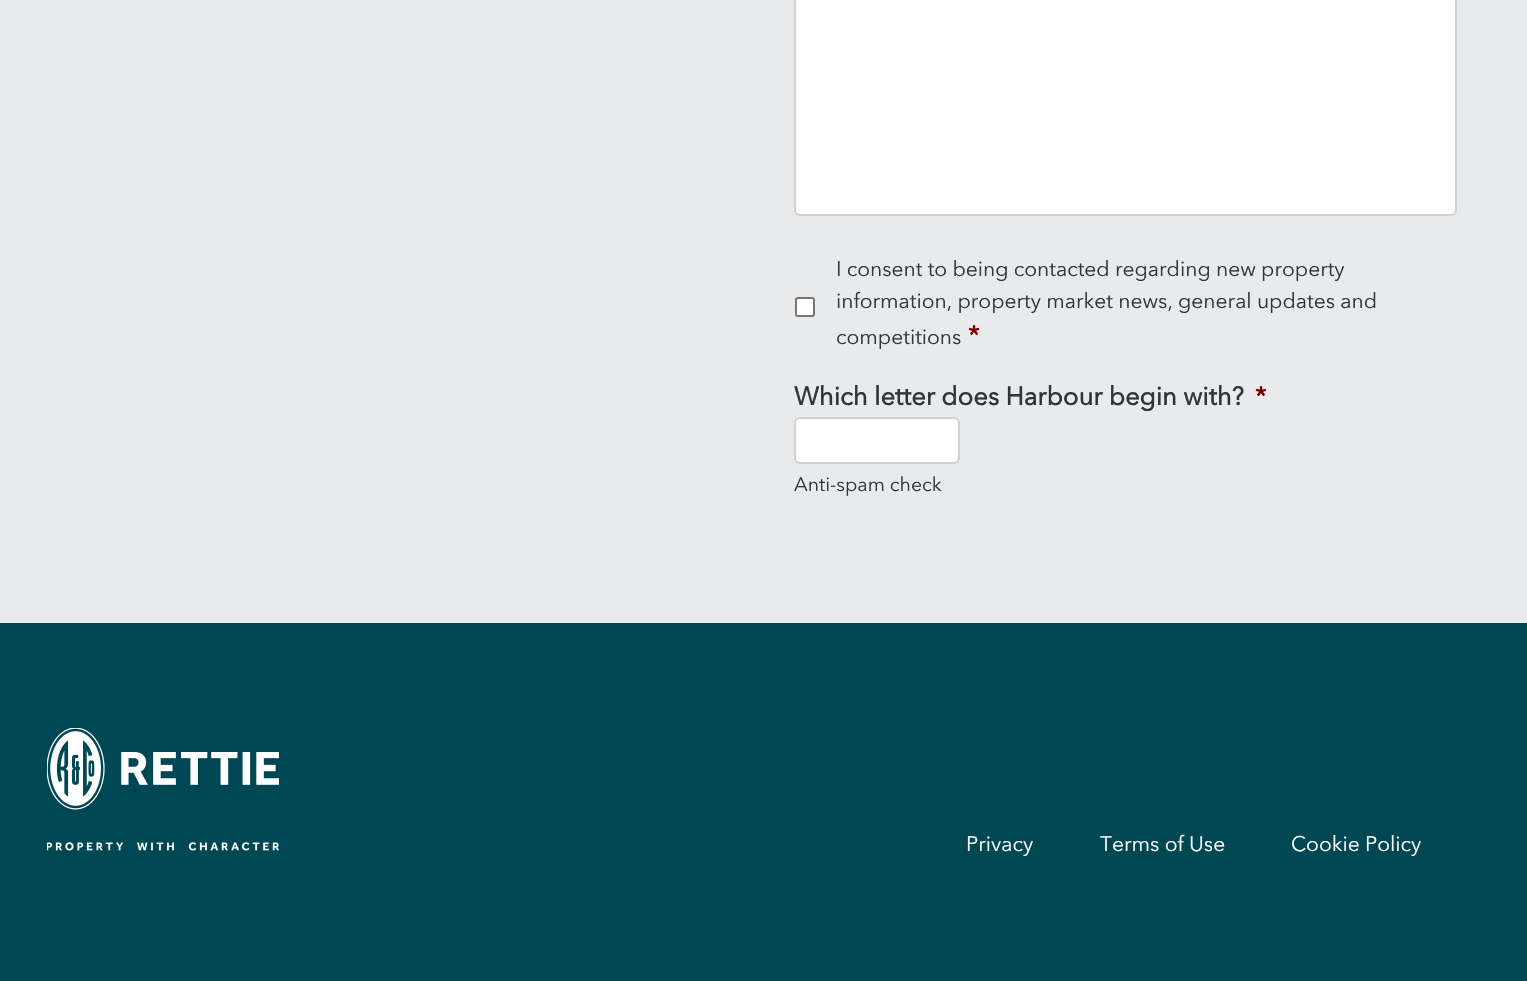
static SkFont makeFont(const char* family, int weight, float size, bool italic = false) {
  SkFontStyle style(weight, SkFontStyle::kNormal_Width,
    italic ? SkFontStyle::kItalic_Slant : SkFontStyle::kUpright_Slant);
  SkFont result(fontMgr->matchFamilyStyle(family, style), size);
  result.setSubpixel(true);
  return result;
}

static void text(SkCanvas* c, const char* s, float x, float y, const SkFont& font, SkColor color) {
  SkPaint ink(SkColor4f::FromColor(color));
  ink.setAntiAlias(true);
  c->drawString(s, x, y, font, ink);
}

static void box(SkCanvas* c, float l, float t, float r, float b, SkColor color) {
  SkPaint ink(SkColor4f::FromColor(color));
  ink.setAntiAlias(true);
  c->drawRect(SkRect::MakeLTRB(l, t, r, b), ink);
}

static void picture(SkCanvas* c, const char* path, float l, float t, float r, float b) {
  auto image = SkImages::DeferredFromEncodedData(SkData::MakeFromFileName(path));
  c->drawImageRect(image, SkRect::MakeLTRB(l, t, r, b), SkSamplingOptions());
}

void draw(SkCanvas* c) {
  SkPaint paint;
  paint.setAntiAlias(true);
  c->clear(0xffe9eaeb);
  paint.setColor(0xffffffff);
  c->drawRoundRect(SkRect::MakeLTRB(795, -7, 1456, 215), 5, 5, paint);
  paint.setStyle(SkPaint::kStroke_Style);
  paint.setStrokeWidth(2);
  paint.setColor(0xffd1d1d1);
  c->drawRoundRect(SkRect::MakeLTRB(795, -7, 1456, 215), 5, 5, paint);
  paint.setStyle(SkPaint::kFill_Style);
  paint.setColor(0xffffffff);
  c->drawRoundRect(SkRect::MakeLTRB(796, 298, 814, 316), 2, 2, paint);
  paint.setStyle(SkPaint::kStroke_Style);
  paint.setColor(0xff767676);
  c->drawRoundRect(SkRect::MakeLTRB(796, 298, 814, 316), 2, 2, paint);
  SkFont face1 = makeFont("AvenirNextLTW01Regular", 400, 21);
  text(c, "I consent to being contacted regarding new property", 836, 276, face1, 0xff303538);
  text(c, "information, property market news, general updates and", 836, 308, face1, 0xff303538);
  text(c, "competitions", 836, 344, face1, 0xff303538);
  SkFont face2 = makeFont("AvenirNextLTW01Regular", 700, 25.5f);
  text(c, "*", 968, 344, face2, 0xff790000);
  text(c, "Which letter does Harbour begin with?", 794, 405, face2, 0xff303538);
  text(c, "*", 1255, 405, face2, 0xff790000);
  paint.setStyle(SkPaint::kFill_Style);
  paint.setColor(0xffffffff);
  c->drawRoundRect(SkRect::MakeLTRB(795, 418, 959, 463), 5, 5, paint);
  paint.setStyle(SkPaint::kStroke_Style);
  paint.setColor(0xffd1d1d1);
  c->drawRoundRect(SkRect::MakeLTRB(795, 418, 959, 463), 5, 5, paint);
  SkFont face3 = makeFont("AvenirNextLTW01Regular", 400, 19.5f);
  text(c, "Anti-spam check", 794, 491, face3, 0xff303538);
  box(c, 0, 623, 1527, 981, 0xff004754);
  picture(c, "img_01.png", 47, 728, 279, 851);
  text(c, "Privacy", 966, 851, face1, 0xffffffff);
  text(c, "Terms of Use", 1100, 851, face1, 0xffffffff);
  text(c, "Cookie Policy", 1291, 851, face1, 0xffffffff);
}
